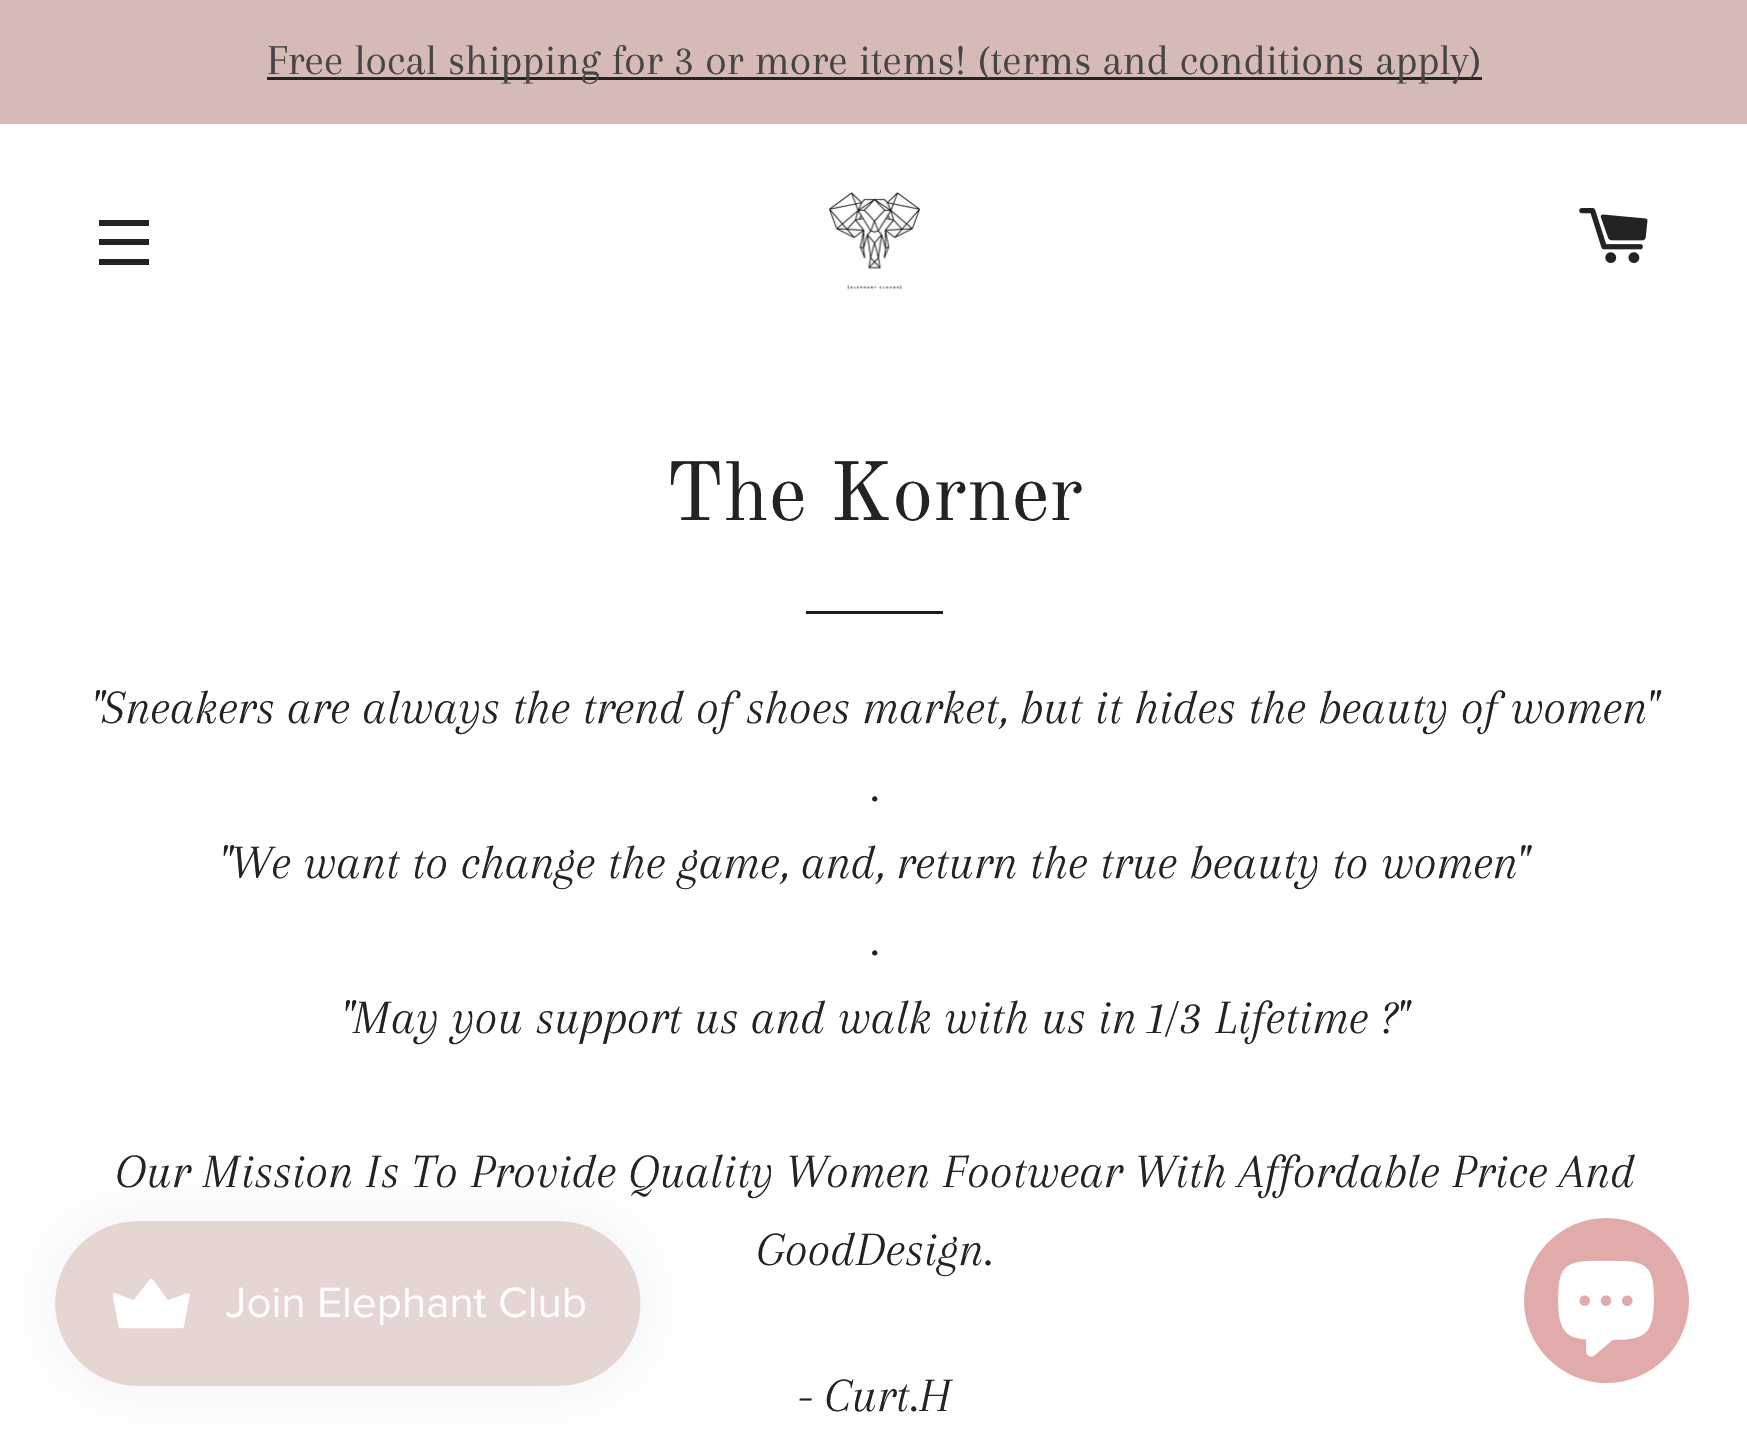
static SkFont makeFont(const char* family, int weight, float size, bool italic = false) {
  SkFontStyle style(weight, SkFontStyle::kNormal_Width,
    italic ? SkFontStyle::kItalic_Slant : SkFontStyle::kUpright_Slant);
  SkFont result(fontMgr->matchFamilyStyle(family, style), size);
  result.setSubpixel(true);
  return result;
}

static void text(SkCanvas* c, const char* s, float x, float y, const SkFont& font, SkColor color) {
  SkPaint ink(SkColor4f::FromColor(color));
  ink.setAntiAlias(true);
  c->drawString(s, x, y, font, ink);
}

static void box(SkCanvas* c, float l, float t, float r, float b, SkColor color) {
  SkPaint ink(SkColor4f::FromColor(color));
  ink.setAntiAlias(true);
  c->drawRect(SkRect::MakeLTRB(l, t, r, b), ink);
}

static void picture(SkCanvas* c, const char* path, float l, float t, float r, float b) {
  auto image = SkImages::DeferredFromEncodedData(SkData::MakeFromFileName(path));
  c->drawImageRect(image, SkRect::MakeLTRB(l, t, r, b), SkSamplingOptions());
}

void draw(SkCanvas* c) {
  SkPaint paint;
  paint.setAntiAlias(true);
  c->clear(0xffffffff);
  box(c, 0, 0, 1747, 124, 0xffd5bab5);
  box(c, 267, 77, 1482, 80, 0xff222323);
  SkFont face1 = makeFont("Arapey", 400, 44);
  text(c, "Free local shipping for 3 or more items! (terms and conditions apply)", 267, 74, face1, 0xff464545);
  box(c, 99, 220, 149, 226, 0xff222323);
  box(c, 99, 239, 149, 245, 0xff222323);
  box(c, 99, 259, 149, 265, 0xff222323);
  picture(c, "img_01.png", 828, 191, 923, 290);
  picture(c, "img_02.png", 1579, 208, 1648, 263);
  SkFont face2 = makeFont("Old Standard TT", 400, 82.5f);
  text(c, "The Korner", 665, 520, face2, 0xff222323);
  box(c, 806, 611, 943, 614, 0xff1c1d1d);
  SkFont face3 = makeFont("Arapey", 400, 49.5f, true);
  text(c, "\"Sneakers are always the trend of shoes market, but it hides the beauty of women\"", 92, 723, face3, 0xff222323);
  text(c, ".", 870, 801, face3, 0xff222323);
  text(c, "\"We want to change the game, and, return the true beauty to women\"", 220, 878, face3, 0xff222323);
  text(c, ".", 870, 955, face3, 0xff222323);
  text(c, "\"May you support us and walk with us in 1/3 Lifetime ?\"", 342, 1033, face3, 0xff222323);
  text(c, "Our Mission Is To Provide Quality Women Footwear With Affordable Price And", 115, 1187, face3, 0xff222323);
  text(c, "GoodDesign.", 756, 1265, face3, 0xff222323);
  text(c, "- Curt.H", 798, 1411, face3, 0xff222323);
  paint.setColor(0x0d000000);
  paint.setMaskFilter(SkMaskFilter::MakeBlur(kNormal_SkBlurStyle, 34.5f));
  c->drawRoundRect(SkRect::MakeLTRB(55, 1221, 641, 1386), 82.5f, 82.5f, paint);
  paint.setMaskFilter(nullptr);
  picture(c, "img_03.png", 55, 1221, 641, 1386);
  paint.setColor(0xffe1abab);
  c->drawCircle(1606.5f, 1300.5f, 82.5f, paint);
  picture(c, "img_04.png", 1558, 1260, 1654, 1357);
}
